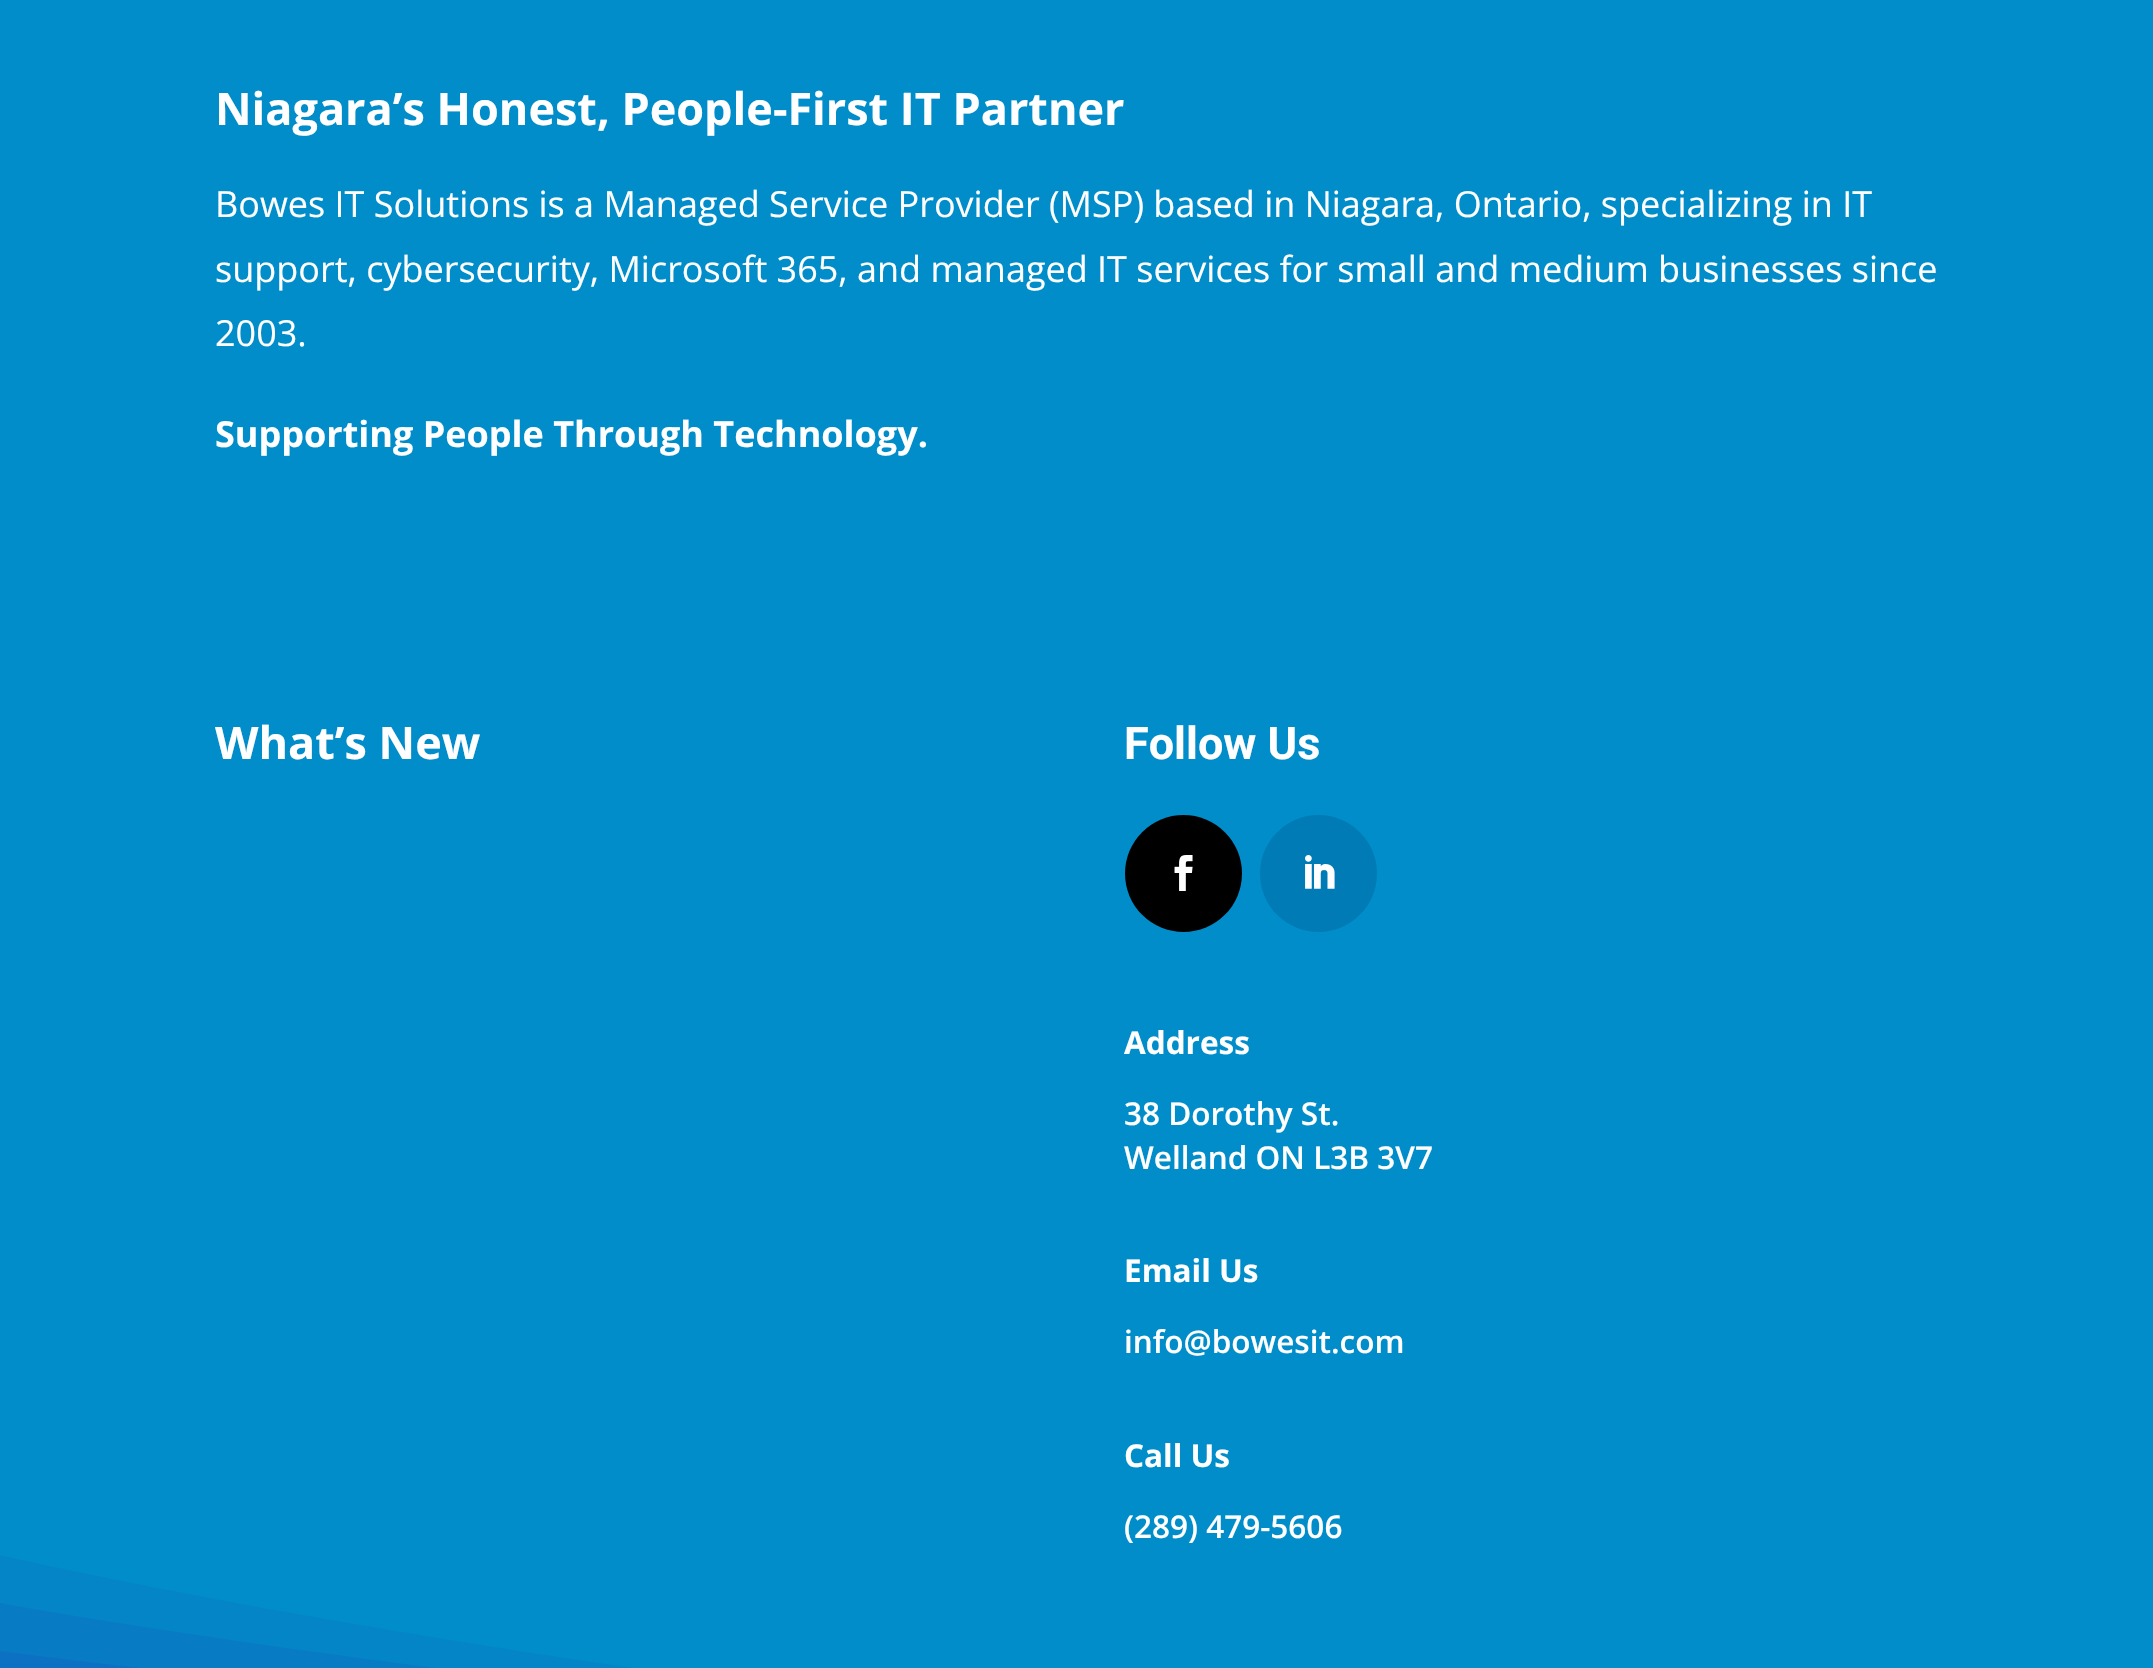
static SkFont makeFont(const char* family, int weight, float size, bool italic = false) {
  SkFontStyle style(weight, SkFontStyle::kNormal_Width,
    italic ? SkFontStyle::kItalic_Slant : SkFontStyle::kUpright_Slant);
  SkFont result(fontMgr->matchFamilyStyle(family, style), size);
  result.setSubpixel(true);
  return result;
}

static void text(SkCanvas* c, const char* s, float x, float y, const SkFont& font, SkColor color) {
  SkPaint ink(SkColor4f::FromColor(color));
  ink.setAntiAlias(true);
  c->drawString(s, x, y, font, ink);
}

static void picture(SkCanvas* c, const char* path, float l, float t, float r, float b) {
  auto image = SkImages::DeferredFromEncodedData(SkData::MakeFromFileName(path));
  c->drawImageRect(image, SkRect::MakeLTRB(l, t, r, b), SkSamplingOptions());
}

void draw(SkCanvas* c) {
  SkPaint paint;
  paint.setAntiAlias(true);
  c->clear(0xff008dc9);
  SkFont face1 = makeFont("Open Sans", 700, 45);
  text(c, "Niagara’s Honest, People-First IT Partner", 215, 125, face1, 0xffffffff);
  SkFont face2 = makeFont("Open Sans", 400, 36);
  text(c, "Bowes IT Solutions is a Managed Service Provider (MSP) based in Niagara, Ontario, specializing in IT", 215, 217, face2, 0xffffffff);
  text(c, "support, cybersecurity, Microsoft 365, and managed IT services for small and medium businesses since", 215, 282, face2, 0xffffffff);
  text(c, "2003.", 215, 346, face2, 0xffffffff);
  SkFont face3 = makeFont("Open Sans", 700, 36);
  text(c, "Supporting People Through Technology.", 215, 447, face3, 0xffffffff);
  text(c, "What’s New", 215, 759, face1, 0xffffffff);
  SkFont face4 = makeFont("Roboto", 700, 45);
  text(c, "Follow Us", 1124, 759, face4, 0xffffffff);
  paint.setColor(0xff000000);
  c->drawCircle(1183.5f, 873.5f, 58.5f, paint);
  picture(c, "img_01.png", 1174, 855, 1193, 891);
  paint.setColor(0xff007bb6);
  c->drawCircle(1318.5f, 873.5f, 58.5f, paint);
  picture(c, "img_02.png", 1305, 855, 1335, 889);
  SkFont face5 = makeFont("Open Sans", 700, 31.5f);
  text(c, "Address", 1124, 1054, face5, 0xffffffff);
  SkFont face6 = makeFont("Open Sans", 600, 31.5f);
  text(c, "38 Dorothy St.", 1124, 1125, face6, 0xffffffff);
  text(c, "Welland ON L3B 3V7", 1124, 1169, face6, 0xffffffff);
  text(c, "Email Us", 1124, 1282, face5, 0xffffffff);
  text(c, "info@bowesit.com", 1124, 1353, face6, 0xffffffff);
  text(c, "Call Us", 1124, 1467, face5, 0xffffffff);
  text(c, "(289) 479-5606", 1124, 1538, face6, 0xffffffff);
  paint.setColor(0xff0485c7);
  c->drawPath(SkPathBuilder().moveTo(0, 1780).lineTo(2153, 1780).cubicTo(964, 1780, 0, 1555, 0, 1555).close().detach(), paint);
  paint.setColor(0xff087bc5);
  c->drawPath(SkPathBuilder().moveTo(0, 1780).lineTo(2153, 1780).cubicTo(964, 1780, 0, 1603, 0, 1603).close().detach(), paint);
  paint.setColor(0xff0c71c3);
  c->drawPath(SkPathBuilder().moveTo(0, 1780).lineTo(2153, 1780).cubicTo(964, 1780, 0, 1651, 0, 1651).close().detach(), paint);
}
